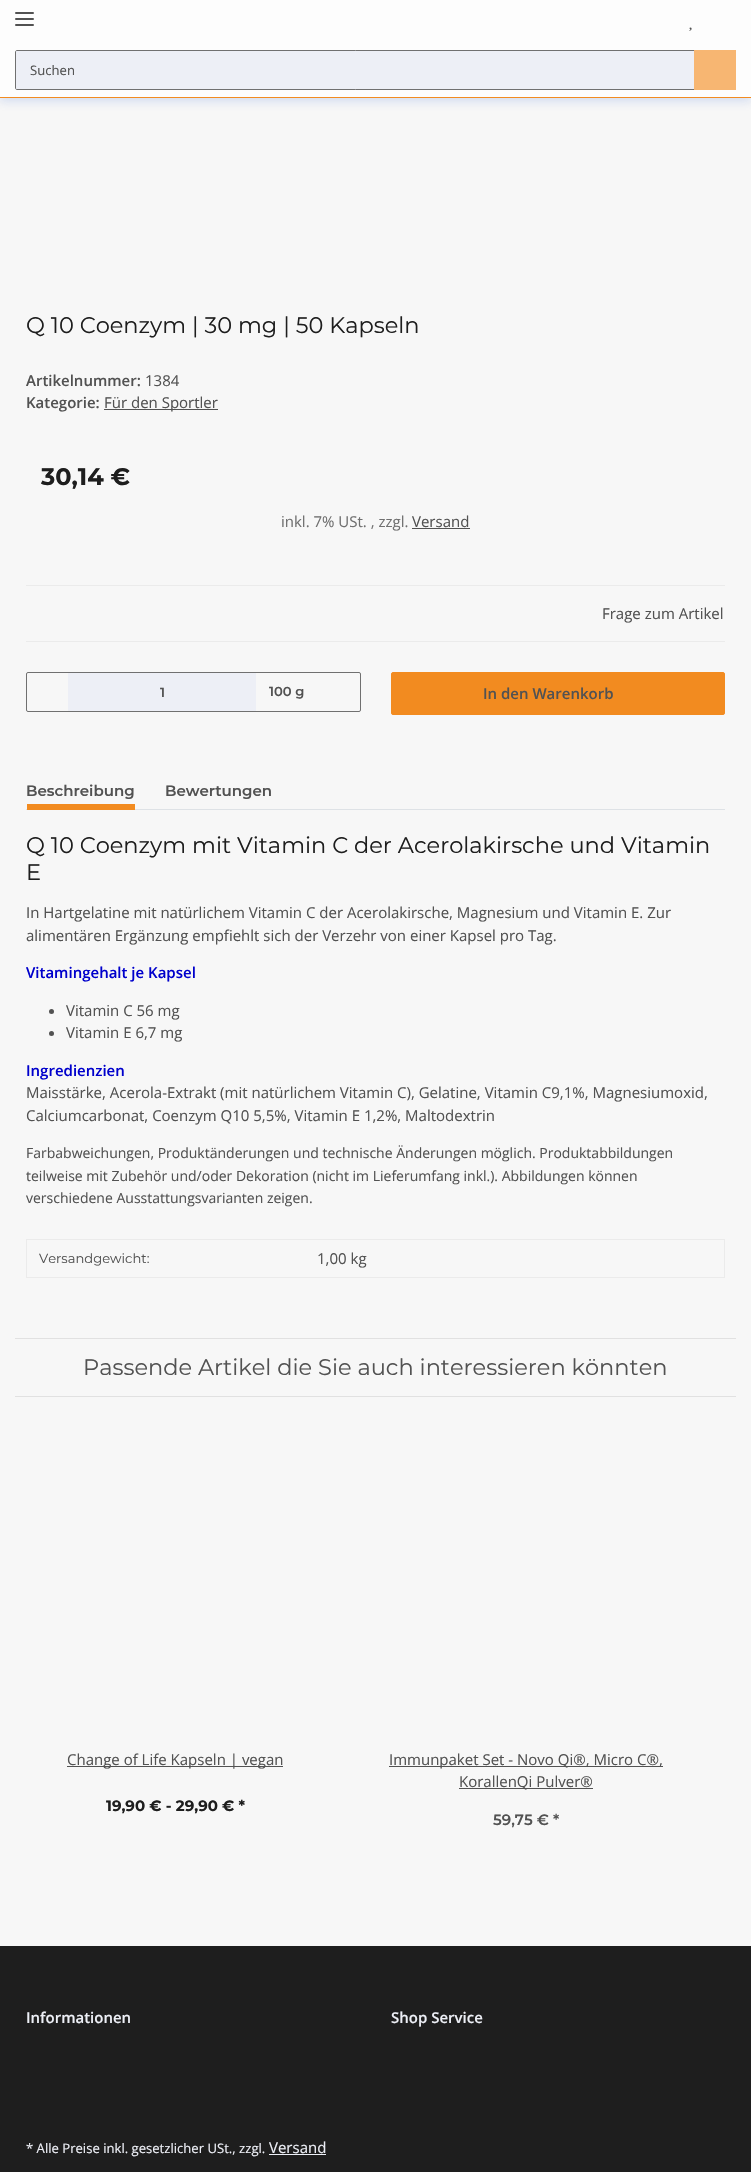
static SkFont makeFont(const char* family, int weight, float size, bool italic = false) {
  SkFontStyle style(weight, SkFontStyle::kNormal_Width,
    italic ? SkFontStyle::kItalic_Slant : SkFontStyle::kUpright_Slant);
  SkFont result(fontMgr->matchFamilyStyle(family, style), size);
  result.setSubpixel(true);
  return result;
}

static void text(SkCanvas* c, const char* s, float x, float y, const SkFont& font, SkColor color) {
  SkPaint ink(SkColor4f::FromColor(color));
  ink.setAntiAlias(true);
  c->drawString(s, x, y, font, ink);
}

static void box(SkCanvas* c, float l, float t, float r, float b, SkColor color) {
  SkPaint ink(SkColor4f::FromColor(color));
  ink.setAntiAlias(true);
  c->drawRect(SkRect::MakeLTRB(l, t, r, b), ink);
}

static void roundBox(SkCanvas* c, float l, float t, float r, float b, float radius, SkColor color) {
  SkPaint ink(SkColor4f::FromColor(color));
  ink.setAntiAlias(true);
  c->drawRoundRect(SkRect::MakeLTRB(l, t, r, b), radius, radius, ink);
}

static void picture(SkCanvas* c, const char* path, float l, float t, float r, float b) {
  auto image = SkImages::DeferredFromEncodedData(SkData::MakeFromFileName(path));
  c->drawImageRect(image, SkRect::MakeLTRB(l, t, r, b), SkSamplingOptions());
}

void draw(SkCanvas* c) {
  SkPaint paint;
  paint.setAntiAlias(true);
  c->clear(0xfff7f7f7);
  paint.setColor(0x333366cc);
  paint.setMaskFilter(SkMaskFilter::MakeBlur(kNormal_SkBlurStyle, 5));
  c->drawRect(SkRect::MakeLTRB(-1, 1, 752, 101), paint);
  paint.setMaskFilter(nullptr);
  box(c, 0, 0, 751, 97, 0xfffdfdfd);
  box(c, 0, 97, 751, 98, 0xfff28b20);
  roundBox(c, 15, 18, 34, 20, 1, 0xff525252);
  roundBox(c, 15, 12, 34, 14, 1, 0xff525252);
  roundBox(c, 15, 24, 34, 26, 1, 0xff525252);
  picture(c, "img_01.png", 689, 27, 692, 31);
  paint.setColor(0xffedeff6);
  c->drawPath(SkPathBuilder().moveTo(17, 50.5f).lineTo(694.5f, 50.5f).lineTo(694.5f, 89.5f).lineTo(17, 89.5f).cubicTo(16, 89.5f, 15.5f, 89, 15.5f, 88).lineTo(15.5f, 52).cubicTo(15.5f, 51, 16, 50.5f, 17, 50.5f).close().detach(), paint);
  paint.setStyle(SkPaint::kStroke_Style);
  paint.setStrokeWidth(1);
  paint.setColor(0xff707070);
  c->drawPath(SkPathBuilder().moveTo(17, 50.5f).lineTo(694.5f, 50.5f).lineTo(694.5f, 89.5f).lineTo(17, 89.5f).cubicTo(16, 89.5f, 15.5f, 89, 15.5f, 88).lineTo(15.5f, 52).cubicTo(15.5f, 51, 16, 50.5f, 17, 50.5f).close().detach(), paint);
  SkFont face1 = makeFont("Open Sans", 400, 13.1f);
  text(c, "Suchen", 30, 75, face1, 0xff525252);
  box(c, 694, 50, 736, 90, 0xfff7b672);
  SkFont face2 = makeFont("Montserrat", 400, 22.5f);
  text(c, "Q 10 Coenzym | 30 mg | 50 Kapseln", 26, 333, face2, 0xff1e1e1e);
  SkFont face3 = makeFont("Open Sans", 600, 15);
  text(c, "Artikelnummer:", 26, 386, face3, 0xff525252);
  SkFont face4 = makeFont("Open Sans", 400, 15);
  text(c, "1384", 145, 386, face4, 0xff525252);
  text(c, "Kategorie:", 26, 408, face3, 0xff525252);
  box(c, 104, 409, 218, 410, 0xff525252);
  text(c, "Für den Sportler", 104, 408, face4, 0xff525252);
  SkFont face5 = makeFont("Montserrat", 700, 24);
  text(c, "30,14 €", 41, 485, face5, 0xff1e1e1e);
  text(c, "inkl. 7% USt. , zzgl.", 281, 527, face4, 0xff707070);
  text(c, "Versand", 412, 527, face4, 0xff525252);
  box(c, 412, 528, 470, 529, 0xff525252);
  box(c, 26, 585, 725, 586, 0xffebebeb);
  box(c, 26, 641, 725, 642, 0xffebebeb);
  text(c, "Frage zum Artikel", 602, 619, face4, 0xff525252);
  c->drawRoundRect(SkRect::MakeLTRB(26.5f, 672.5f, 360.5f, 711.5f), 1.5f, 1.5f, paint);
  box(c, 68, 673, 256, 711, 0xffedeff6);
  SkFont face6 = makeFont("Montserrat", 600, 13.1f);
  text(c, "1", 160, 697, face6, 0xff525252);
  text(c, "100 g", 269, 696, face6, 0xff525252);
  paint.setStyle(SkPaint::kFill_Style);
  paint.setColor(0xfff28b20);
  c->drawRoundRect(SkRect::MakeLTRB(391.5f, 672.5f, 724.5f, 714.5f), 1.5f, 1.5f, paint);
  paint.setStyle(SkPaint::kStroke_Style);
  c->drawRoundRect(SkRect::MakeLTRB(391.5f, 672.5f, 724.5f, 714.5f), 1.5f, 1.5f, paint);
  text(c, "In den Warenkorb", 483, 699, face3, 0xff525252);
  box(c, 26, 809, 725, 810, 0xffdee2e6);
  SkFont face7 = makeFont("Montserrat", 600, 15);
  text(c, "Beschreibung", 26, 796, face7, 0xff525252);
  box(c, 27, 804, 135, 810, 0xfff28b20);
  text(c, "Bewertungen", 165, 796, face7, 0xff525252);
  text(c, "Q 10 Coenzym mit Vitamin C der Acerolakirsche und Vitamin", 26, 853, face2, 0xff1e1e1e);
  text(c, "E", 26, 880, face2, 0xff1e1e1e);
  text(c, "In Hartgelatine mit natürlichem Vitamin C der Acerolakirsche, Magnesium und Vitamin E. Zur", 26, 918, face4, 0xff525252);
  text(c, "alimentären Ergänzung empfiehlt sich der Verzehr von einer Kapsel pro Tag.", 26, 941, face4, 0xff525252);
  text(c, "Vitamingehalt je Kapsel", 26, 978, face3, 0xff0000cc);
  paint.setStyle(SkPaint::kFill_Style);
  paint.setColor(0xff525252);
  c->drawCircle(51.5f, 1011.5f, 2.5f, paint);
  text(c, "Vitamin C 56 mg", 66, 1016, face4, 0xff525252);
  c->drawCircle(51.5f, 1033.5f, 2.5f, paint);
  text(c, "Vitamin E 6,7 mg", 66, 1038, face4, 0xff525252);
  text(c, "Ingredienzien", 26, 1076, face3, 0xff0000cc);
  text(c, "Maisstärke, Acerola-Extrakt (mit natürlichem Vitamin C), Gelatine, Vitamin C9,1%, Magnesiumoxid,", 26, 1098, face4, 0xff525252);
  text(c, "Calciumcarbonat, Coenzym Q10 5,5%, Vitamin E 1,2%, Maltodextrin", 26, 1121, face4, 0xff525252);
  SkFont face8 = makeFont("Open Sans", 400, 14);
  text(c, "Farbabweichungen, Produktänderungen und technische Änderungen möglich. Produktabbildungen", 26, 1158, face8, 0xff525252);
  text(c, "teilweise mit Zubehör und/oder Dekoration (nicht im Lieferumfang inkl.). Abbildungen können", 26, 1181, face8, 0xff525252);
  text(c, "verschiedene Ausstattungsvarianten zeigen.", 26, 1203, face8, 0xff525252);
  box(c, 26, 1239, 725, 1240, 0xffebebeb);
  box(c, 724, 1239, 725, 1278, 0xffebebeb);
  box(c, 26, 1277, 725, 1278, 0xffebebeb);
  box(c, 26, 1239, 27, 1278, 0xffebebeb);
  SkFont face9 = makeFont("Montserrat", 400, 13.1f);
  text(c, "Versandgewicht:", 39, 1263, face9, 0xff525252);
  text(c, "1,00 kg", 317, 1264, face4, 0xff525252);
  box(c, 15, 1338, 736, 1339, 0xffe1e1e1);
  box(c, 15, 1396, 736, 1397, 0xffe1e1e1);
  text(c, "Passende Artikel die Sie auch interessieren könnten", 83, 1375, face2, 0xff525252);
  box(c, 67, 1766, 283, 1767, 0xff525252);
  text(c, "Change of Life Kapseln | vegan", 67, 1765, face4, 0xff525252);
  SkFont face10 = makeFont("Montserrat", 700, 15);
  text(c, "19,90 € - 29,90 € *", 106, 1811, face10, 0xff1e1e1e);
  box(c, 389, 1766, 663, 1767, 0xff525252);
  text(c, "Immunpaket Set - Novo Qi®, Micro C®,", 389, 1765, face4, 0xff525252);
  box(c, 459, 1788, 593, 1789, 0xff525252);
  text(c, "KorallenQi Pulver®", 459, 1787, face4, 0xff525252);
  text(c, "59,75 € *", 493, 1825, face7, 0xff525252);
  box(c, 0, 1946, 751, 2172, 0xff1e1e1e);
  text(c, "Informationen", 26, 2023, face3, 0xffedeff6);
  text(c, "Shop Service", 391, 2023, face3, 0xffedeff6);
  text(c, "* Alle Preise inkl. gesetzlicher USt., zzgl.", 26, 2153, face1, 0xffedeff6);
  box(c, 269, 2154, 326, 2155, 0xffedeff6);
  text(c, "Versand", 269, 2153, face4, 0xffedeff6);
}
